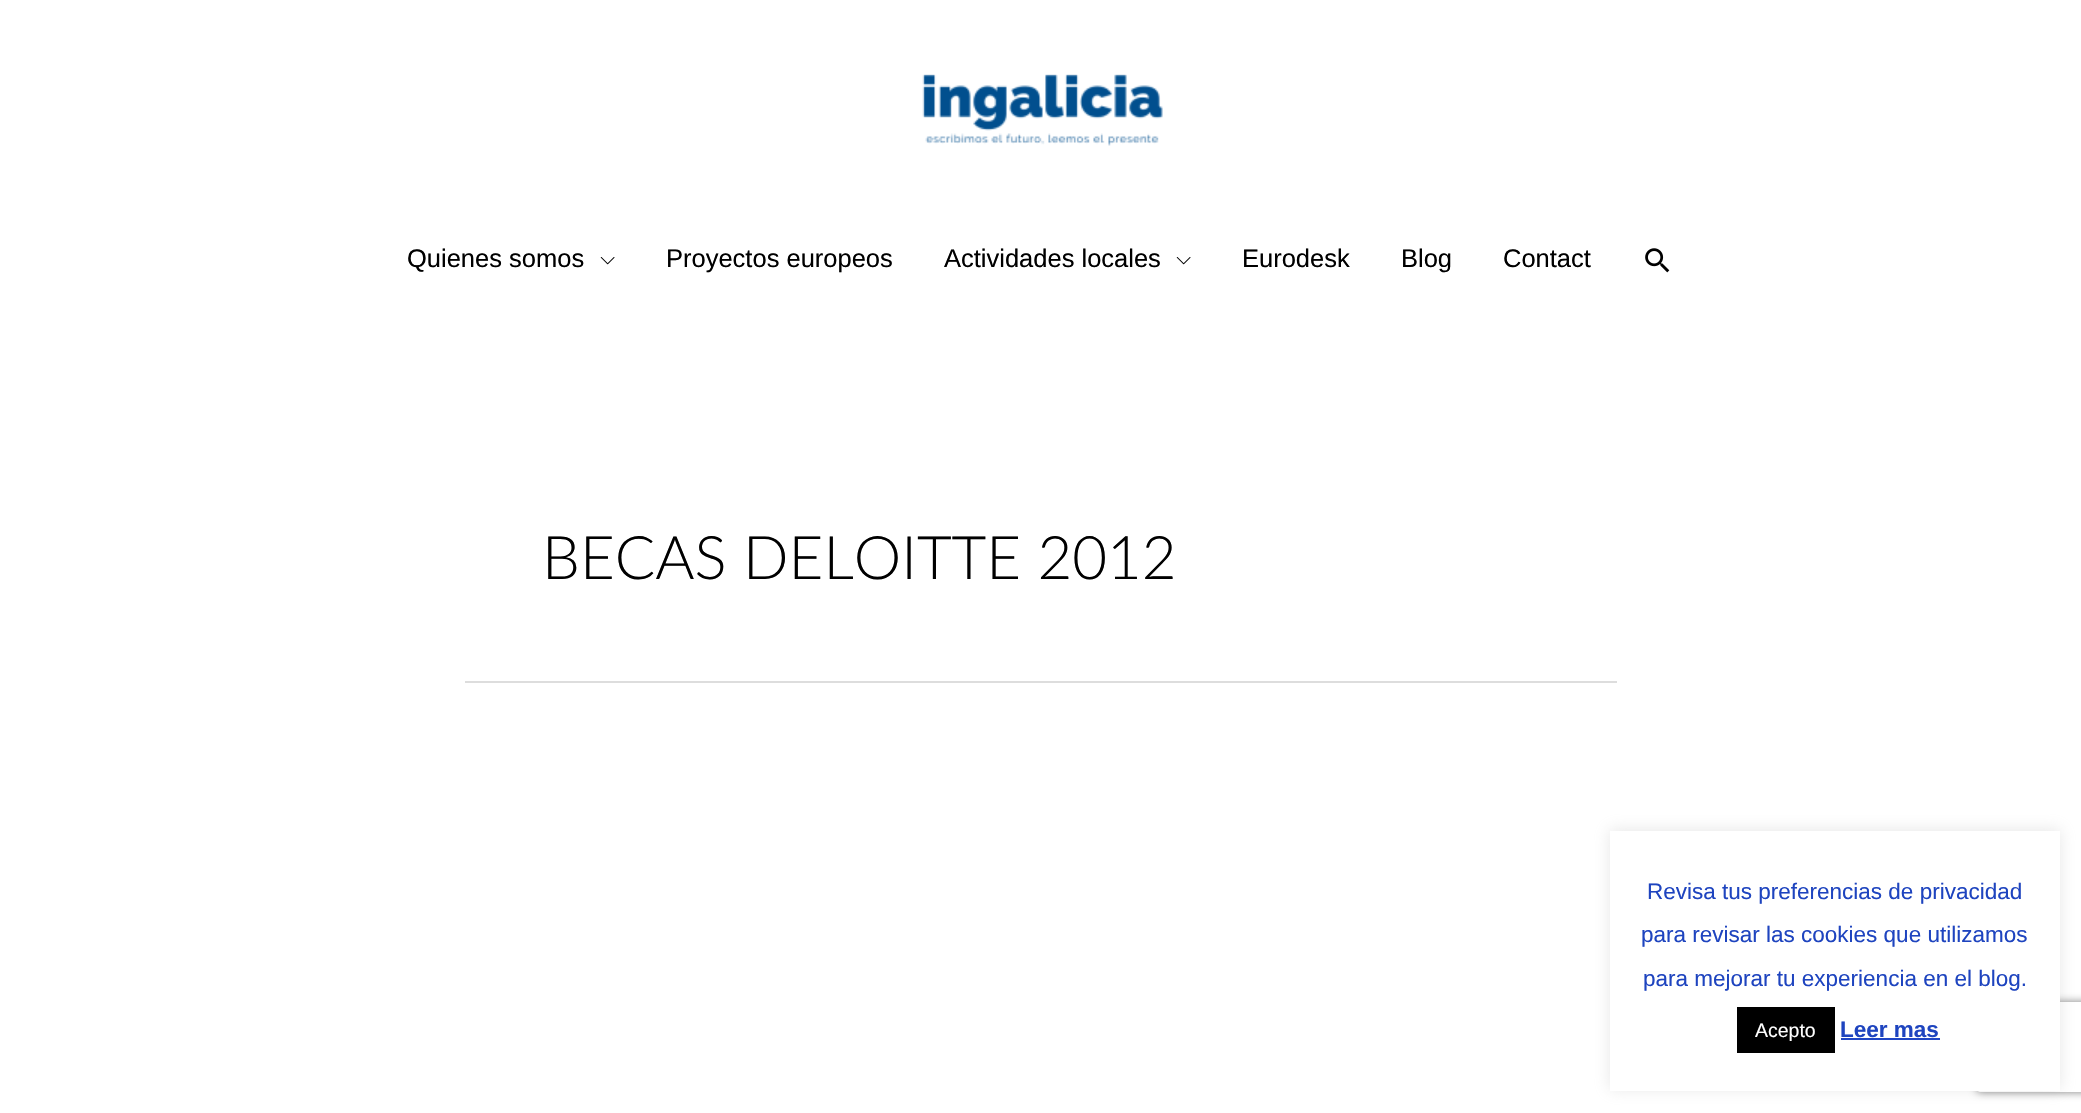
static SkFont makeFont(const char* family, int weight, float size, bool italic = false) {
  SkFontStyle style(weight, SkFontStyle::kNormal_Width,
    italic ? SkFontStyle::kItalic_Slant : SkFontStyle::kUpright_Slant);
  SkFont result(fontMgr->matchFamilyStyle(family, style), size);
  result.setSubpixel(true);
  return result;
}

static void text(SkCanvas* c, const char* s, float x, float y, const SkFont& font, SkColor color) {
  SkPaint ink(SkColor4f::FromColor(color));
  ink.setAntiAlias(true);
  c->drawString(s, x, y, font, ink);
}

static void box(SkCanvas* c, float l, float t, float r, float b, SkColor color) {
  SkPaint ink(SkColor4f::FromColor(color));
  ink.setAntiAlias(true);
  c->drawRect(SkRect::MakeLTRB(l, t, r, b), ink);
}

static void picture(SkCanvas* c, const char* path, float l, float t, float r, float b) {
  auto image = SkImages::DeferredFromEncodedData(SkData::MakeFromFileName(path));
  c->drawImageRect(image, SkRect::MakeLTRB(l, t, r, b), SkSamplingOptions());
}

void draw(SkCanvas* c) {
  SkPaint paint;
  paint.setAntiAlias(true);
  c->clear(0xffffffff);
  picture(c, "img_01.png", 922, 74, 1163, 146);
  SkFont face1 = makeFont("Liberation Sans", 400, 25.5f);
  text(c, "Quienes somos", 407, 267, face1, 0xff000000);
  picture(c, "img_02.png", 600, 257, 615, 265);
  text(c, "Proyectos europeos", 666, 267, face1, 0xff000000);
  text(c, "Actividades locales", 944, 267, face1, 0xff000000);
  picture(c, "img_02.png", 1176, 257, 1191, 265);
  text(c, "Eurodesk", 1242, 267, face1, 0xff000000);
  text(c, "Blog", 1401, 267, face1, 0xff000000);
  text(c, "Contact", 1503, 267, face1, 0xff000000);
  picture(c, "img_03.png", 1645, 248, 1670, 273);
  box(c, 465, 681, 1617, 683, 0xffdddddd);
  SkFont face2 = makeFont("Lato", 300, 60);
  text(c, "BECAS DELOITTE 2012", 542, 579, face2, 0xff000000);
  paint.setColor(0x4dacabab);
  paint.setMaskFilter(SkMaskFilter::MakeBlur(kNormal_SkBlurStyle, 7.5f));
  c->drawRect(SkRect::MakeLTRB(1610, 830, 2060, 1089), paint);
  paint.setMaskFilter(nullptr);
  c->save();
  c->clipPath(SkPathBuilder(SkPathFillType::kEvenOdd).moveTo(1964, 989).lineTo(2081, 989).lineTo(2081, 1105).lineTo(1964, 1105).close().moveTo(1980, 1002).lineTo(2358, 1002).cubicTo(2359.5f, 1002, 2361, 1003.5f, 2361, 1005).lineTo(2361, 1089).cubicTo(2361, 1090.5f, 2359.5f, 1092, 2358, 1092).lineTo(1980, 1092).cubicTo(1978.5f, 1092, 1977, 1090.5f, 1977, 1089).lineTo(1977, 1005).cubicTo(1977, 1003.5f, 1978.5f, 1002, 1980, 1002).close().detach(), true);
  paint.setColor(0xff808080);
  paint.setMaskFilter(SkMaskFilter::MakeBlur(kNormal_SkBlurStyle, 4));
  c->drawRoundRect(SkRect::MakeLTRB(1977, 1002, 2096, 1092), 3, 3, paint);
  paint.setMaskFilter(nullptr);
  c->restore();
  box(c, 1610, 831, 2060, 1091, 0xffffffff);
  SkFont face3 = makeFont("Liberation Sans", 400, 22.5f);
  text(c, "Revisa tus preferencias de privacidad", 1647, 899, face3, 0xff1e44bf);
  text(c, "para revisar las cookies que utilizamos", 1641, 942, face3, 0xff1e44bf);
  text(c, "para mejorar tu experiencia en el blog.", 1643, 986, face3, 0xff1e44bf);
  box(c, 1737, 1007, 1835, 1053, 0xff000000);
  SkFont face4 = makeFont("Liberation Sans", 400, 19.5f);
  text(c, "Acepto", 1755, 1037, face4, 0xffffffff);
  SkFont face5 = makeFont("Liberation Sans", 700, 22.5f);
  text(c, "Leer mas", 1840, 1037, face5, 0xff1e44bf);
  box(c, 1841, 1038, 1940, 1040, 0xff1f45c4);
}
